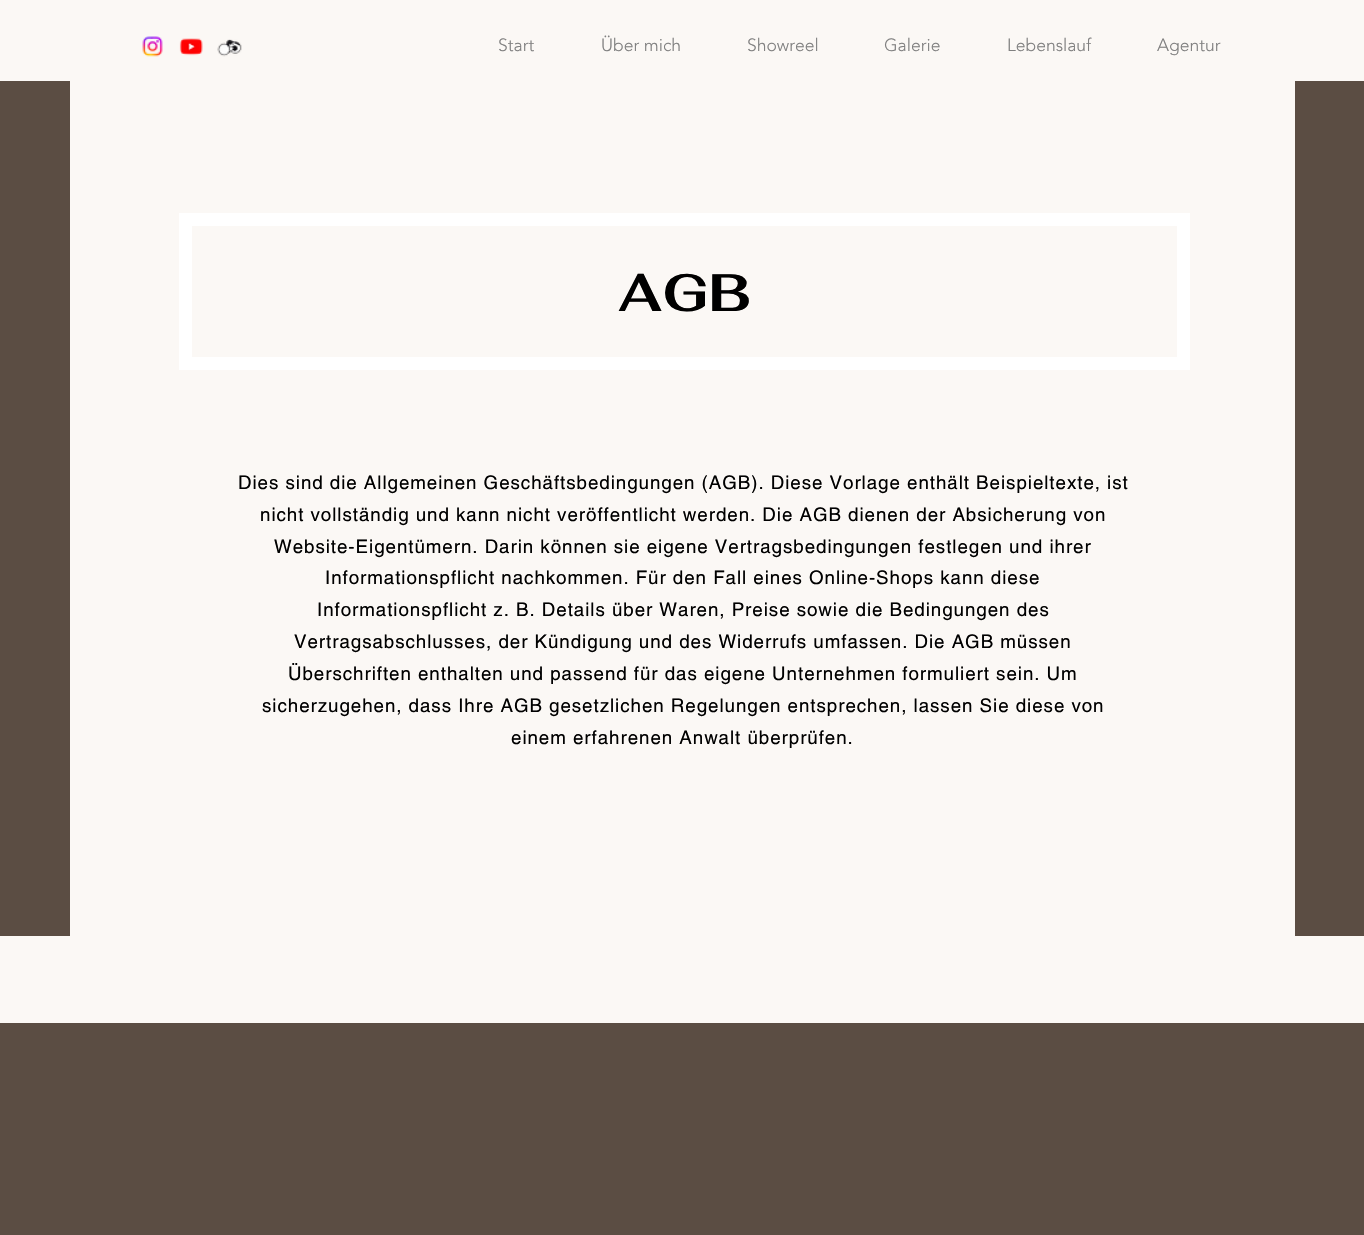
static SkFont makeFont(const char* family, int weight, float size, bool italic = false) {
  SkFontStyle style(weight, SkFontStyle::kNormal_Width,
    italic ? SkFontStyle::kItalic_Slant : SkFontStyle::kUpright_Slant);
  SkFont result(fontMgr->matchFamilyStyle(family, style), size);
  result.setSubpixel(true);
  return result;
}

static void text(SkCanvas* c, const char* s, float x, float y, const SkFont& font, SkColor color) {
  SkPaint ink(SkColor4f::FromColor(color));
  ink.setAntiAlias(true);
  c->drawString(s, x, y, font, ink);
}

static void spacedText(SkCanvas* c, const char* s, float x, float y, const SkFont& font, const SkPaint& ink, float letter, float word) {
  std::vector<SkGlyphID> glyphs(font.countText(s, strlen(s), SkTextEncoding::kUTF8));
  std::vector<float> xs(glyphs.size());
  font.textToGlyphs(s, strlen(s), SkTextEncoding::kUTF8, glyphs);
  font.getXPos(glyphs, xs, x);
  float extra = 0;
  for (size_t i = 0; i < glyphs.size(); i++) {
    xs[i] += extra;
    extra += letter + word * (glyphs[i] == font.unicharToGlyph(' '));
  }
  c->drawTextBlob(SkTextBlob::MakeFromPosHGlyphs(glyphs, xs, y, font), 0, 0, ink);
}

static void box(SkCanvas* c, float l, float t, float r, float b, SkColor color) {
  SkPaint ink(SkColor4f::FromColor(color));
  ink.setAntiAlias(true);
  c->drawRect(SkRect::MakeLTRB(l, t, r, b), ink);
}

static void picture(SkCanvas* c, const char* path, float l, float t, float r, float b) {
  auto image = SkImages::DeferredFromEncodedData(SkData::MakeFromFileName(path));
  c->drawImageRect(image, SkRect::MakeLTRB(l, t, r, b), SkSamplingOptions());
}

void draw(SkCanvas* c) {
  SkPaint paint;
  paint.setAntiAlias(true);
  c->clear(0xff5b4d43);
  box(c, 0, 0, 1364, 81, 0xfffbf8f5);
  picture(c, "img_01.png", 142, 36, 163, 57);
  picture(c, "img_02.png", 179, 38, 203, 56);
  picture(c, "img_03.png", 217, 39, 242, 57);
  SkFont face1 = makeFont("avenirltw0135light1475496", 300, 17.5f);
  text(c, "Start", 498, 51, face1, 0xff808080);
  text(c, "Über mich", 601, 51, face1, 0xff808080);
  text(c, "Showreel", 747, 51, face1, 0xff808080);
  text(c, "Galerie", 884, 51, face1, 0xff808080);
  text(c, "Lebenslauf", 1007, 51, face1, 0xff808080);
  text(c, "Agentur", 1157, 51, face1, 0xff808080);
  box(c, 70, 81, 1295, 936, 0xfffbf8f5);
  paint.setStyle(SkPaint::kStroke_Style);
  paint.setStrokeWidth(13);
  paint.setColor(0xffffffff);
  c->drawRect(SkRect::MakeLTRB(185.5f, 219.5f, 1183.5f, 363.5f), paint);
  SkFont face2 = makeFont("Fahkwang", 700, 52.5f);
  text(c, "AGB", 618, 311, face2, 0xff000000);
  SkFont face3 = makeFont("helvetica", 400, 18.75f);
  paint.setStyle(SkPaint::kFill_Style);
  paint.setColor(0xff000000);
  spacedText(c, "Dies sind die Allgemeinen Geschäftsbedingungen (AGB). Diese Vorlage enthält Beispieltexte, ist", 238, 489, face3, paint, 0.95f, 0);
  spacedText(c, "nicht vollständig und kann nicht veröffentlicht werden. Die AGB dienen der Absicherung von", 260, 521, face3, paint, 0.95f, 0);
  spacedText(c, "Website-Eigentümern. Darin können sie eigene Vertragsbedingungen festlegen und ihrer", 274, 553, face3, paint, 0.95f, 0);
  spacedText(c, "Informationspflicht nachkommen. Für den Fall eines Online-Shops kann diese", 325, 584, face3, paint, 0.95f, 0);
  spacedText(c, "Informationspflicht z. B. Details über Waren, Preise sowie die Bedingungen des", 317, 616, face3, paint, 0.95f, 0);
  spacedText(c, "Vertragsabschlusses, der Kündigung und des Widerrufs umfassen. Die AGB müssen", 294, 648, face3, paint, 0.95f, 0);
  spacedText(c, "Überschriften enthalten und passend für das eigene Unternehmen formuliert sein. Um", 288, 680, face3, paint, 0.95f, 0);
  spacedText(c, "sicherzugehen, dass Ihre AGB gesetzlichen Regelungen entsprechen, lassen Sie diese von", 262, 712, face3, paint, 0.95f, 0);
  spacedText(c, "einem erfahrenen Anwalt überprüfen.", 511, 744, face3, paint, 0.95f, 0);
  box(c, 0, 936, 1364, 1023, 0xfffbf8f5);
}
